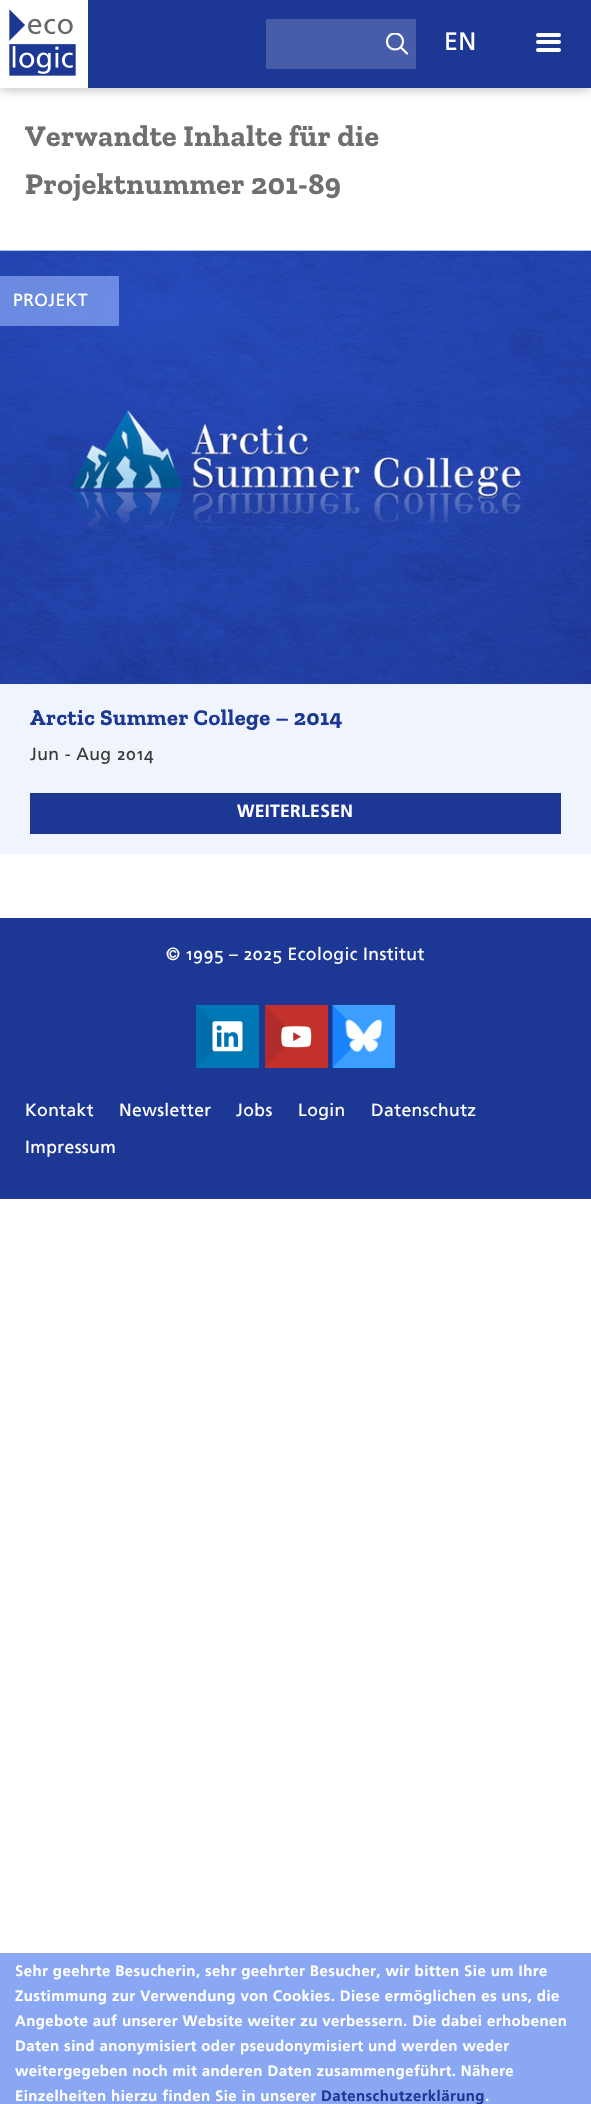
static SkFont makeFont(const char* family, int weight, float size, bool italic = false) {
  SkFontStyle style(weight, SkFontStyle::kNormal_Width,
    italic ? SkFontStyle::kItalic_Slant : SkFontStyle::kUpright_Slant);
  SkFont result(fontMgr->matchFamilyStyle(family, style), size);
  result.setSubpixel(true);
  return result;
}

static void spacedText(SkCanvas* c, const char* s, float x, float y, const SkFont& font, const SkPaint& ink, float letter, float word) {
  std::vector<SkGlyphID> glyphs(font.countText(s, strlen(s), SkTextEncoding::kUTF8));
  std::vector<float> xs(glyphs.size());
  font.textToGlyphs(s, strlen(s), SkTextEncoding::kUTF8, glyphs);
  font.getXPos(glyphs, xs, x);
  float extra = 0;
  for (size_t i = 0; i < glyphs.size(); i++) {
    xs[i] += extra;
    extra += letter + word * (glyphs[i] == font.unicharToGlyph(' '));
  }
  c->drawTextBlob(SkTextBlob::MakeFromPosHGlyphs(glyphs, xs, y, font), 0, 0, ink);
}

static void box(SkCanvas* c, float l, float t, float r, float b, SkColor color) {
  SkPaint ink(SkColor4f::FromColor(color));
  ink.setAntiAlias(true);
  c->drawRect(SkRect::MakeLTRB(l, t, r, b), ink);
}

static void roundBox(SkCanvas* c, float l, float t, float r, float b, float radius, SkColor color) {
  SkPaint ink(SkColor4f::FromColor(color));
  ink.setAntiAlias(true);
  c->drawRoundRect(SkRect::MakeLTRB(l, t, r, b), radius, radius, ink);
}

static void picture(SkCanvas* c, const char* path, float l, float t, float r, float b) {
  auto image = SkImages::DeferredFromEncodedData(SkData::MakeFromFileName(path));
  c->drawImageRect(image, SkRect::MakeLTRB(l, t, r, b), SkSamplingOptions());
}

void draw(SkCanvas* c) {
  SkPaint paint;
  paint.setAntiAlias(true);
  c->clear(0xffffffff);
  paint.setColor(0xa8838282);
  paint.setMaskFilter(SkMaskFilter::MakeBlur(kNormal_SkBlurStyle, 6));
  c->drawRect(SkRect::MakeLTRB(0, 0, 591, 88), paint);
  paint.setMaskFilter(nullptr);
  box(c, 88, 0, 591, 88, 0xff1d3794);
  box(c, 0, 0, 88, 88, 0xffffffff);
  picture(c, "img_01.png", 9, 9, 76, 76);
  box(c, 266, 19, 416, 69, 0xff475da9);
  c->save();
  c->clipRect(SkRect::MakeLTRB(386, 33, 409, 55));
  paint.setStyle(SkPaint::kStroke_Style);
  paint.setStrokeWidth(2.2f);
  paint.setColor(0xffffffff);
  c->drawCircle(395, 41.5f, 8, paint);
  c->restore();
  paint.setStrokeCap(SkPaint::kRound_Cap);
  c->drawPath(SkPathBuilder().moveTo(401, 47.5f).lineTo(407, 53.5f).detach(), paint);
  SkFont face1 = makeFont("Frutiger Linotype", 400, 25);
  paint.setStyle(SkPaint::kFill_Style);
  spacedText(c, "EN", 444, 50, face1, paint, 0.4f, 0);
  roundBox(c, 536, 33, 561, 37, 2, 0xffffffff);
  roundBox(c, 536, 40, 561, 44, 2, 0xffffffff);
  roundBox(c, 536, 48, 561, 52, 2, 0xffffffff);
  SkFont face2 = makeFont("Zilla Slab", 700, 30);
  paint.setColor(0xff6f6f6f);
  spacedText(c, "Verwandte Inhalte für die", 25, 146, face2, paint, 0.5f, 0);
  spacedText(c, "Projektnummer 201-89", 25, 194, face2, paint, 0.5f, 0);
  box(c, 0, 250, 591, 251, 0xffacc1f7);
  box(c, 0, 684, 591, 854, 0xffeff4fd);
  picture(c, "img_02.png", 0, 251, 591, 684);
  picture(c, "img_03.png", 72, 410, 522, 530);
  box(c, 0, 276, 119, 326, 0xb389a7f3);
  SkFont face3 = makeFont("Frutiger Linotype", 400, 17.5f);
  paint.setColor(0xffffffff);
  spacedText(c, "PROJEKT", 13, 306, face3, paint, 0.4f, 0);
  SkFont face4 = makeFont("Zilla Slab", 700, 22.5f);
  paint.setColor(0xff1d3794);
  spacedText(c, "Arctic Summer College – 2014", 30, 725, face4, paint, 0.5f, 0);
  paint.setColor(0xff393939);
  spacedText(c, "Jun - Aug 2014", 30, 760, face3, paint, 0.4f, 0);
  box(c, 30, 793, 561, 834, 0xff1d3794);
  SkFont face5 = makeFont("Frutiger Linotype", 700, 17.5f);
  paint.setColor(0xffffffff);
  spacedText(c, "WEITERLESEN", 237, 817, face5, paint, 0.3f, 0);
  box(c, 0, 918, 591, 1199, 0xff1d3794);
  spacedText(c, "© 1995 – 2025 Ecologic Institut", 166, 960, face3, paint, 0.4f, 0);
  box(c, 243, 1005, 259, 1068, 0xff0077b5);
  picture(c, "img_04.png", 196, 1005, 243, 1068);
  box(c, 312, 1005, 328, 1068, 0xffc4302b);
  picture(c, "img_05.png", 265, 1005, 312, 1068);
  box(c, 333, 1067, 395, 1068, 0xff00acee);
  paint.setColor(0x33000000);
  c->drawPath(SkPathBuilder().moveTo(332, 1068).lineTo(332, 1005).lineTo(364, 1036).close().detach(), paint);
  picture(c, "img_06.png", 332, 1005, 395, 1068);
  paint.setColor(0xffffffff);
  spacedText(c, "Kontakt", 25, 1116, face3, paint, 0.4f, 0);
  spacedText(c, "Newsletter", 119, 1116, face3, paint, 0.4f, 0);
  spacedText(c, "Jobs", 236, 1116, face3, paint, 0.4f, 0);
  spacedText(c, "Login", 298, 1116, face3, paint, 0.4f, 0);
  spacedText(c, "Datenschutz", 371, 1116, face3, paint, 0.4f, 0);
  spacedText(c, "Impressum", 25, 1153, face3, paint, 0.4f, 0);
  box(c, 0, 1953, 591, 2104, 0xff89a7f3);
  SkFont face6 = makeFont("Frutiger Linotype", 700, 15);
  spacedText(c, "Sehr geehrte Besucherin, sehr geehrter Besucher, wir bitten Sie um Ihre", 15, 1976, face6, paint, 0.4f, 0);
  spacedText(c, "Zustimmung zur Verwendung von Cookies. Diese ermöglichen es uns, die", 15, 2001, face6, paint, 0.4f, 0);
  spacedText(c, "Angebote auf unserer Website weiter zu verbessern. Die dabei erhobenen", 15, 2026, face6, paint, 0.4f, 0);
  spacedText(c, "Daten sind anonymisiert oder pseudonymisiert und werden weder", 15, 2051, face6, paint, 0.4f, 0);
  spacedText(c, "weitergegeben noch mit anderen Daten zusammengeführt. Nähere", 15, 2076, face6, paint, 0.4f, 0);
  spacedText(c, "Einzelheiten hierzu finden Sie in unserer", 15, 2101, face6, paint, 0.4f, 0);
  paint.setColor(0xff1d3794);
  spacedText(c, "Datenschutzerklärung", 321, 2101, face6, paint, 0.4f, 0);
  paint.setColor(0xffffffff);
  spacedText(c, ".", 485, 2101, face6, paint, 0.4f, 0);
}
